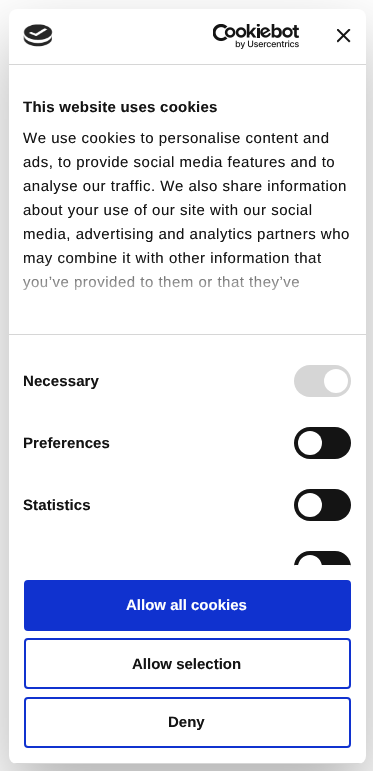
static SkFont makeFont(const char* family, int weight, float size, bool italic = false) {
  SkFontStyle style(weight, SkFontStyle::kNormal_Width,
    italic ? SkFontStyle::kItalic_Slant : SkFontStyle::kUpright_Slant);
  SkFont result(fontMgr->matchFamilyStyle(family, style), size);
  result.setSubpixel(true);
  return result;
}

static void text(SkCanvas* c, const char* s, float x, float y, const SkFont& font, SkColor color) {
  SkPaint ink(SkColor4f::FromColor(color));
  ink.setAntiAlias(true);
  c->drawString(s, x, y, font, ink);
}

static void spacedText(SkCanvas* c, const char* s, float x, float y, const SkFont& font, const SkPaint& ink, float letter, float word) {
  std::vector<SkGlyphID> glyphs(font.countText(s, strlen(s), SkTextEncoding::kUTF8));
  std::vector<float> xs(glyphs.size());
  font.textToGlyphs(s, strlen(s), SkTextEncoding::kUTF8, glyphs);
  font.getXPos(glyphs, xs, x);
  float extra = 0;
  for (size_t i = 0; i < glyphs.size(); i++) {
    xs[i] += extra;
    extra += letter + word * (glyphs[i] == font.unicharToGlyph(' '));
  }
  c->drawTextBlob(SkTextBlob::MakeFromPosHGlyphs(glyphs, xs, y, font), 0, 0, ink);
}

static void box(SkCanvas* c, float l, float t, float r, float b, SkColor color) {
  SkPaint ink(SkColor4f::FromColor(color));
  ink.setAntiAlias(true);
  c->drawRect(SkRect::MakeLTRB(l, t, r, b), ink);
}

static void roundBox(SkCanvas* c, float l, float t, float r, float b, float radius, SkColor color) {
  SkPaint ink(SkColor4f::FromColor(color));
  ink.setAntiAlias(true);
  c->drawRoundRect(SkRect::MakeLTRB(l, t, r, b), radius, radius, ink);
}

static void picture(SkCanvas* c, const char* path, float l, float t, float r, float b) {
  auto image = SkImages::DeferredFromEncodedData(SkData::MakeFromFileName(path));
  c->drawImageRect(image, SkRect::MakeLTRB(l, t, r, b), SkSamplingOptions());
}

void draw(SkCanvas* c) {
  SkPaint paint;
  paint.setAntiAlias(true);
  c->clear(0xffffffff);
  paint.setColor(0x4d000000);
  paint.setMaskFilter(SkMaskFilter::MakeBlur(kNormal_SkBlurStyle, 34));
  c->drawRoundRect(SkRect::MakeLTRB(9, 41, 366, 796), 8, 8, paint);
  paint.setMaskFilter(nullptr);
  roundBox(c, 9, 9, 366, 764, 8, 0xffffffff);
  box(c, 9, 64, 366, 65, 0xffd6d6d6);
  picture(c, "img_01.png", 23, 24, 53, 47);
  picture(c, "img_02.png", 213, 24, 300, 49);
  picture(c, "img_03.png", 337, 29, 351, 43);
  box(c, 9, 334, 366, 335, 0xffd6d6d6);
  SkFont face1 = makeFont("Liberation Sans", 700, 15);
  paint.setColor(0xff141414);
  spacedText(c, "This website uses cookies", 23, 112, face1, paint, 0.25f, 0);
  SkFont face2 = makeFont("Liberation Sans", 400, 15);
  spacedText(c, "We use cookies to personalise content and", 23, 143, face2, paint, 0.5f, 0);
  spacedText(c, "ads, to provide social media features and to", 23, 167, face2, paint, 0.5f, 0);
  spacedText(c, "analyse our traffic. We also share information", 23, 191, face2, paint, 0.5f, 0);
  spacedText(c, "about your use of our site with our social", 23, 215, face2, paint, 0.5f, 0);
  spacedText(c, "media, advertising and analytics partners who", 23, 239, face2, paint, 0.5f, 0);
  spacedText(c, "may combine it with other information that", 23, 263, face2, paint, 0.5f, 0);
  spacedText(c, "you’ve provided to them or that they’ve", 23, 287, face2, paint, 0.5f, 0);
  {
    const SkColor colors[] = {0xffffffff, 0xccffffff, 0x00ffffff};
    const float stops[] = {0, 0.5f, 1};
    const SkPoint ends[] = {{181, 334}, {181, 259}};
    paint.setShader(SkGradientShader::MakeLinear(ends, colors, stops, 3, SkTileMode::kClamp));
    paint.setAlpha(255);
  }
  c->drawRect(SkRect::MakeLTRB(23, 260, 321, 291), paint);
  paint.setShader(nullptr);
  paint.setColor(0xff141414);
  spacedText(c, "Necessary", 23, 386, face1, paint, 0.1f, 0);
  roundBox(c, 294, 365, 351, 397, 16, 0xffd6d6d6);
  paint.setColor(0xffffffff);
  c->drawCircle(336, 381, 12, paint);
  paint.setColor(0xff141414);
  spacedText(c, "Preferences", 23, 448, face1, paint, 0.1f, 0);
  roundBox(c, 294, 427, 351, 459, 16, 0xff141414);
  paint.setColor(0xffffffff);
  c->drawCircle(310, 443, 12, paint);
  paint.setColor(0xff141414);
  spacedText(c, "Statistics", 23, 510, face1, paint, 0.1f, 0);
  roundBox(c, 294, 489, 351, 521, 16, 0xff141414);
  paint.setColor(0xffffffff);
  c->drawCircle(310, 505, 12, paint);
  paint.setColor(0xff141414);
  c->drawPath(SkPathBuilder().moveTo(310, 551).lineTo(335, 551).cubicTo(344, 551, 351, 558, 351, 567).lineTo(351, 565).lineTo(294, 565).lineTo(294, 567).cubicTo(294, 558, 301, 551, 310, 551).close().detach(), paint);
  paint.setColor(0xffffffff);
  c->drawPath(SkPathBuilder().moveTo(310, 555).cubicTo(316.5f, 555, 322, 560.5f, 322, 567).lineTo(322, 565).lineTo(298, 565).lineTo(298, 567).cubicTo(298, 560.5f, 303.5f, 555, 310, 555).close().detach(), paint);
  c->save();
  c->clipPath(SkPathBuilder().moveTo(17, 9).lineTo(358, 9).cubicTo(362.5f, 9, 366, 12.5f, 366, 17).lineTo(366, 756).cubicTo(366, 760.5f, 362.5f, 764, 358, 764).lineTo(17, 764).cubicTo(12.5f, 764, 9, 760.5f, 9, 756).lineTo(9, 17).cubicTo(9, 12.5f, 12.5f, 9, 17, 9).close().detach(), true);
  box(c, 9, 763, 366, 764, 0xffd6d6d6);
  c->restore();
  paint.setColor(0xff1032cf);
  c->drawRoundRect(SkRect::MakeLTRB(25, 581, 350, 630), 3, 3, paint);
  paint.setStyle(SkPaint::kStroke_Style);
  paint.setStrokeWidth(2);
  c->drawRoundRect(SkRect::MakeLTRB(25, 581, 350, 630), 3, 3, paint);
  text(c, "Allow all cookies", 126, 610, face1, 0xffffffff);
  c->drawRoundRect(SkRect::MakeLTRB(25, 639, 350, 688), 3, 3, paint);
  text(c, "Allow selection", 132, 669, face1, 0xff141414);
  c->drawRoundRect(SkRect::MakeLTRB(25, 698, 350, 747), 3, 3, paint);
  text(c, "Deny", 168, 727, face1, 0xff141414);
}
